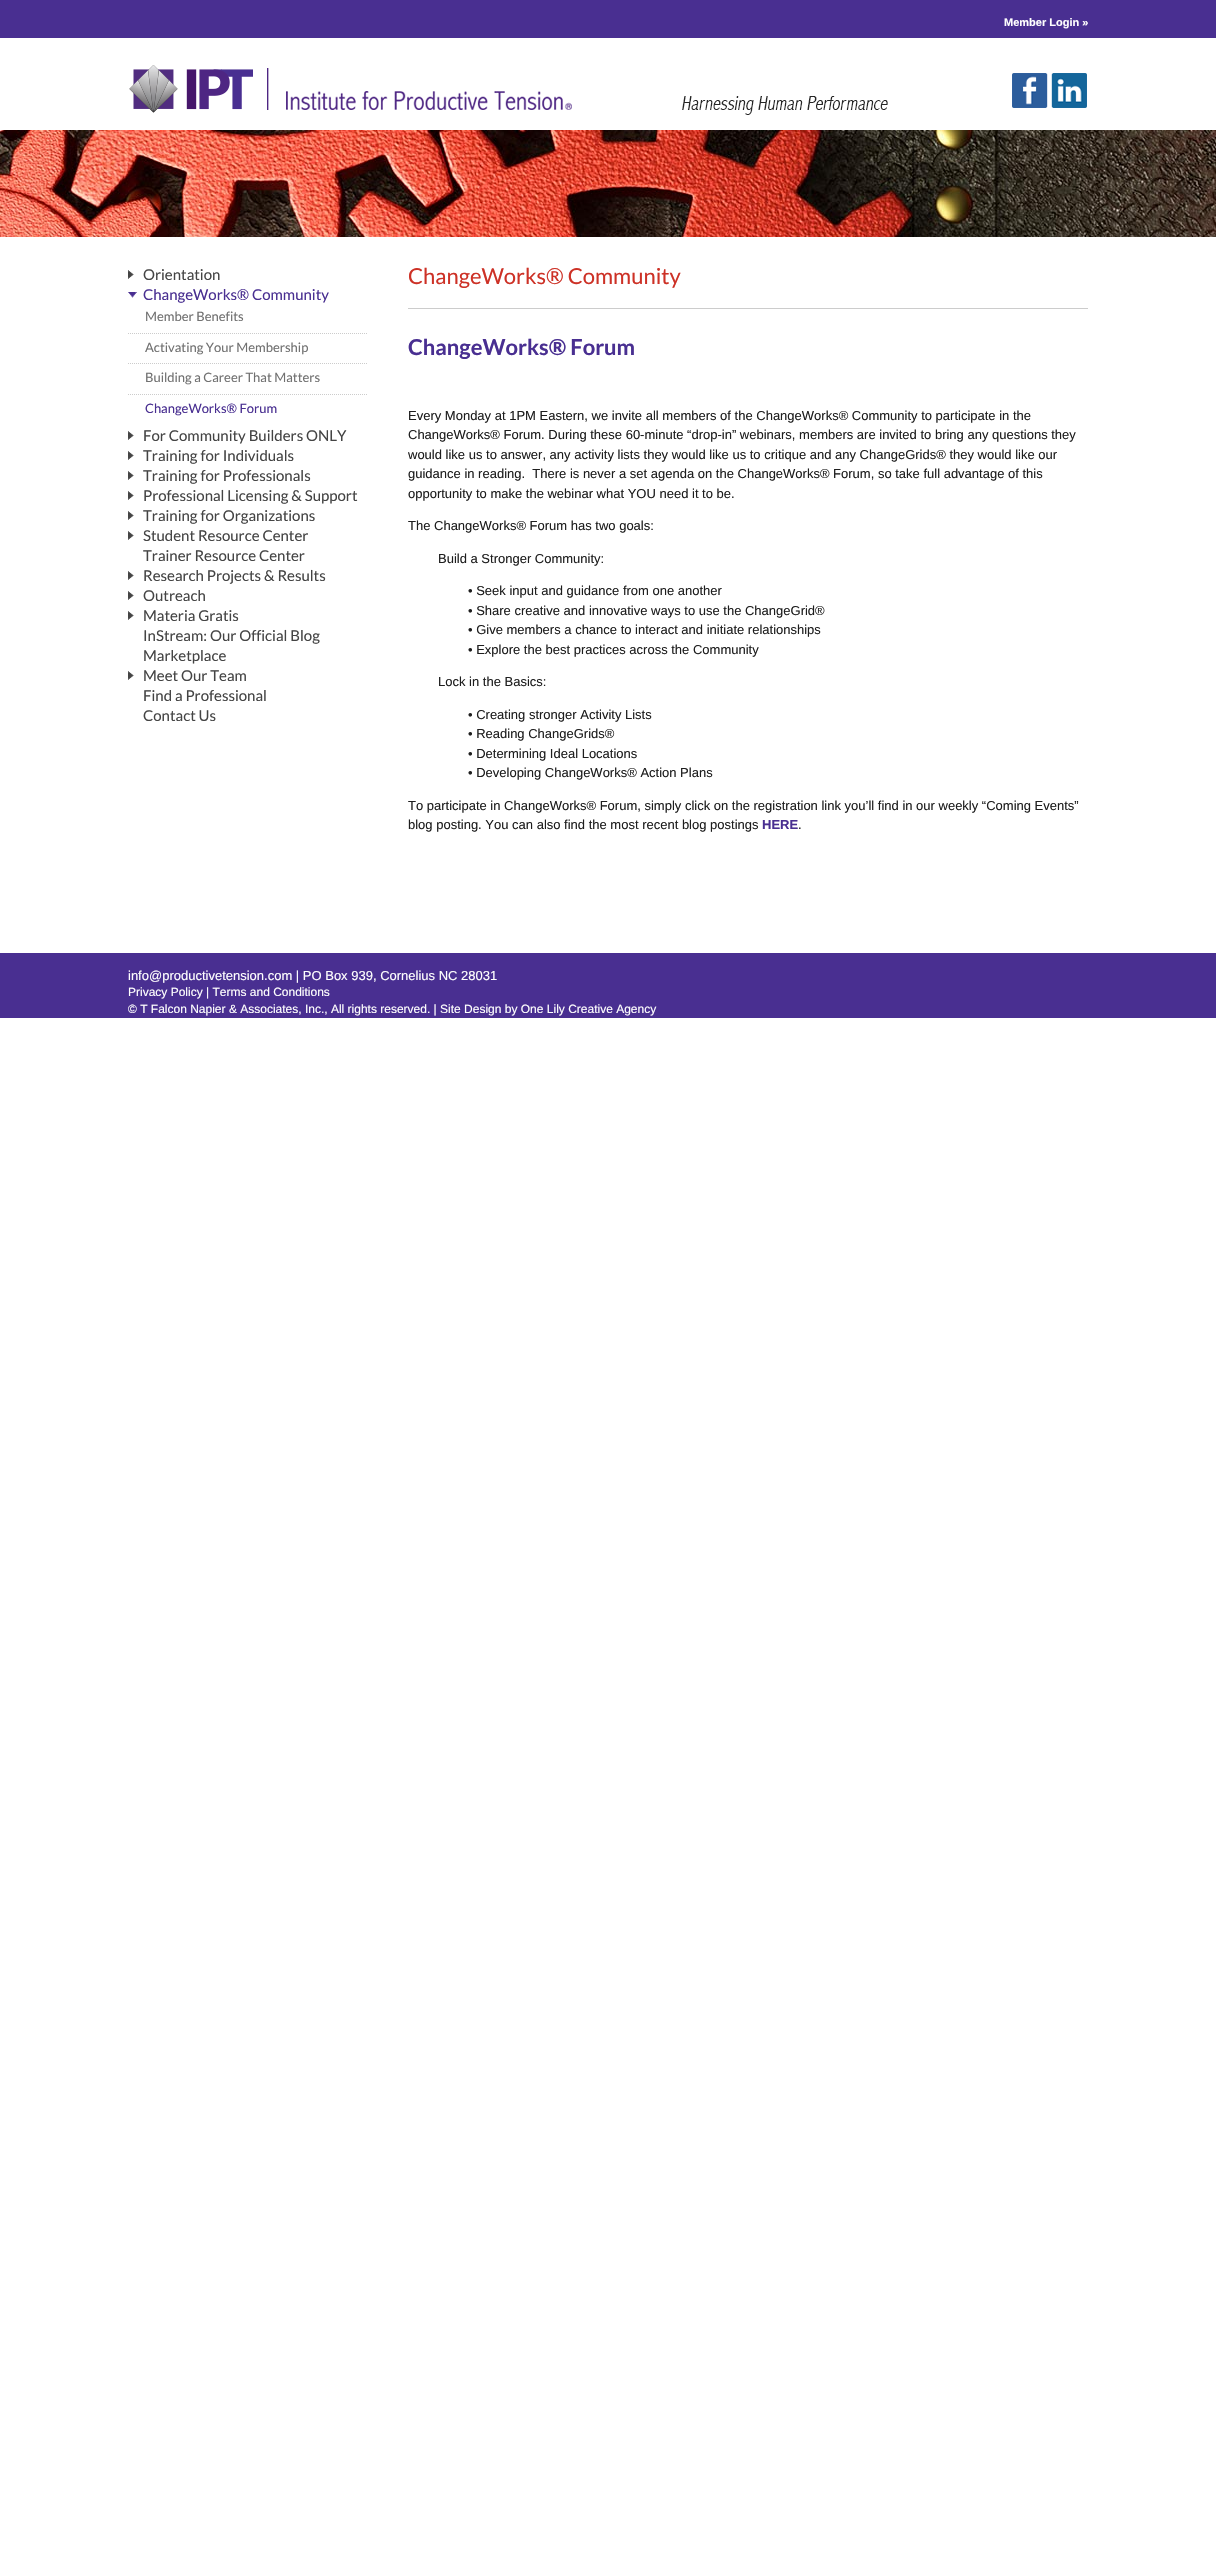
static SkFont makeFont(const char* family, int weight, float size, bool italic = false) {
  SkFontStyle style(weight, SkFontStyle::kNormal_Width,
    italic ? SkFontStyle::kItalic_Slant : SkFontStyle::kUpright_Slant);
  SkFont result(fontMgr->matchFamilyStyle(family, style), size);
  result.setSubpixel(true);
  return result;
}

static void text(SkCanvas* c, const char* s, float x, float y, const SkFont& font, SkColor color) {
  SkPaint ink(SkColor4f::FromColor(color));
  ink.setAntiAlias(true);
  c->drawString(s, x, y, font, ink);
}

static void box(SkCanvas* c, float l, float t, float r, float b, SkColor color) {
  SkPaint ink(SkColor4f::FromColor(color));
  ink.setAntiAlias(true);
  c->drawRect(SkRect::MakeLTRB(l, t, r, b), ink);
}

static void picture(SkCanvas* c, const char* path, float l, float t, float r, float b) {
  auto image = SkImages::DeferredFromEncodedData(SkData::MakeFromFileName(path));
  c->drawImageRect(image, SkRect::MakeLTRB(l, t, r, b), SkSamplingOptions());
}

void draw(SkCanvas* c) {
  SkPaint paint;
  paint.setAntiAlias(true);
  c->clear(0xffffffff);
  box(c, 0, 0, 1216, 38, 0xff492f91);
  SkFont face1 = makeFont("Liberation Sans", 700, 11);
  text(c, "Member Login »", 1004, 26, face1, 0xffffffff);
  picture(c, "img_01.png", 1012, 73, 1048, 108);
  picture(c, "img_02.png", 1051, 73, 1087, 108);
  picture(c, "img_03.png", 129, 65, 888, 115);
  picture(c, "img_04.png", 0, 130, 1216, 237);
  picture(c, "img_05.png", 128, 270, 134, 279);
  SkFont face2 = makeFont("Lato", 400, 15);
  text(c, "Orientation", 143, 280, face2, 0xff444444);
  picture(c, "img_06.png", 128, 292, 137, 298);
  text(c, "ChangeWorks® Community", 143, 300, face2, 0xff492f91);
  SkFont face3 = makeFont("Lato", 400, 13);
  text(c, "Member Benefits", 145, 321, face3, 0xff717171);
  paint.setStyle(SkPaint::kStroke_Style);
  paint.setStrokeWidth(1);
  paint.setColor(0xffcccccc);
  paint.setPathEffect(SkDashPathEffect::Make({{1, 1}}, 0));
  c->drawPath(SkPathBuilder().moveTo(128, 333.5f).lineTo(368, 333.5f).detach(), paint);
  paint.setPathEffect(nullptr);
  text(c, "Activating Your Membership", 145, 352, face3, 0xff717171);
  paint.setPathEffect(SkDashPathEffect::Make({{1, 1}}, 0));
  c->drawPath(SkPathBuilder().moveTo(128, 363.5f).lineTo(368, 363.5f).detach(), paint);
  paint.setPathEffect(nullptr);
  text(c, "Building a Career That Matters", 145, 382, face3, 0xff717171);
  paint.setPathEffect(SkDashPathEffect::Make({{1, 1}}, 0));
  c->drawPath(SkPathBuilder().moveTo(128, 394.5f).lineTo(368, 394.5f).detach(), paint);
  paint.setPathEffect(nullptr);
  text(c, "ChangeWorks® Forum", 145, 413, face3, 0xff492f91);
  picture(c, "img_05.png", 128, 431, 134, 440);
  text(c, "For Community Builders ONLY", 143, 441, face2, 0xff444444);
  picture(c, "img_05.png", 128, 451, 134, 460);
  text(c, "Training for Individuals", 143, 461, face2, 0xff444444);
  picture(c, "img_05.png", 128, 471, 134, 480);
  text(c, "Training for Professionals", 143, 481, face2, 0xff444444);
  picture(c, "img_05.png", 128, 491, 134, 500);
  text(c, "Professional Licensing & Support", 143, 501, face2, 0xff444444);
  picture(c, "img_05.png", 128, 511, 134, 520);
  text(c, "Training for Organizations", 143, 521, face2, 0xff444444);
  picture(c, "img_05.png", 128, 531, 134, 540);
  text(c, "Student Resource Center", 143, 541, face2, 0xff444444);
  text(c, "Trainer Resource Center", 143, 561, face2, 0xff444444);
  picture(c, "img_05.png", 128, 571, 134, 580);
  text(c, "Research Projects & Results", 143, 581, face2, 0xff444444);
  picture(c, "img_05.png", 128, 591, 134, 600);
  text(c, "Outreach", 143, 601, face2, 0xff444444);
  picture(c, "img_05.png", 128, 611, 134, 620);
  text(c, "Materia Gratis", 143, 621, face2, 0xff444444);
  text(c, "InStream: Our Official Blog", 143, 641, face2, 0xff444444);
  text(c, "Marketplace", 143, 661, face2, 0xff444444);
  picture(c, "img_05.png", 128, 671, 134, 680);
  text(c, "Meet Our Team", 143, 681, face2, 0xff444444);
  text(c, "Find a Professional", 143, 701, face2, 0xff444444);
  text(c, "Contact Us", 143, 721, face2, 0xff444444);
  box(c, 408, 308, 1088, 309, 0xffcccccc);
  SkFont face4 = makeFont("Lato", 400, 22);
  text(c, "ChangeWorks® Community", 408, 284, face4, 0xffcd3126);
  SkFont face5 = makeFont("Lato", 700, 22);
  text(c, "ChangeWorks® Forum", 408, 355, face5, 0xff492f91);
  SkFont face6 = makeFont("Liberation Sans", 400, 13);
  text(c, "Every Monday at 1PM Eastern, we invite all members of the ChangeWorks® Community to participate in the", 408, 420, face6, 0xff1e1e1e);
  text(c, "ChangeWorks® Forum. During these 60-minute “drop-in” webinars, members are invited to bring any questions they", 408, 439, face6, 0xff1e1e1e);
  text(c, "would like us to answer, any activity lists they would like us to critique and any ChangeGrids® they would like our", 408, 459, face6, 0xff1e1e1e);
  text(c, "guidance in reading.  There is never a set agenda on the ChangeWorks® Forum, so take full advantage of this", 408, 478, face6, 0xff1e1e1e);
  text(c, "opportunity to make the webinar what YOU need it to be.", 408, 498, face6, 0xff1e1e1e);
  text(c, "The ChangeWorks® Forum has two goals:", 408, 530, face6, 0xff1e1e1e);
  text(c, "Build a Stronger Community:", 438, 563, face6, 0xff1e1e1e);
  text(c, "• Seek input and guidance from one another", 468, 595, face6, 0xff1e1e1e);
  text(c, "• Share creative and innovative ways to use the ChangeGrid®", 468, 615, face6, 0xff1e1e1e);
  text(c, "• Give members a chance to interact and initiate relationships", 468, 634, face6, 0xff1e1e1e);
  text(c, "• Explore the best practices across the Community", 468, 654, face6, 0xff1e1e1e);
  text(c, "Lock in the Basics:", 438, 686, face6, 0xff1e1e1e);
  text(c, "• Creating stronger Activity Lists", 468, 719, face6, 0xff1e1e1e);
  text(c, "• Reading ChangeGrids®", 468, 738, face6, 0xff1e1e1e);
  text(c, "• Determining Ideal Locations", 468, 758, face6, 0xff1e1e1e);
  text(c, "• Developing ChangeWorks® Action Plans", 468, 777, face6, 0xff1e1e1e);
  text(c, "To participate in ChangeWorks® Forum, simply click on the registration link you’ll find in our weekly “Coming Events”", 408, 810, face6, 0xff1e1e1e);
  text(c, "blog posting. You can also find the most recent blog postings", 408, 829, face6, 0xff1e1e1e);
  SkFont face7 = makeFont("Liberation Sans", 700, 13);
  text(c, "HERE", 762, 829, face7, 0xff492f91);
  text(c, ".", 798, 829, face6, 0xff1e1e1e);
  box(c, 0, 953, 1216, 1018, 0xff492f91);
  text(c, "info@productivetension.com | PO Box 939, Cornelius NC 28031", 128, 980, face6, 0xffffffff);
  SkFont face8 = makeFont("Liberation Sans", 400, 12);
  text(c, "Privacy Policy | Terms and Conditions", 128, 996, face8, 0xffffffff);
  text(c, "© T Falcon Napier & Associates, Inc., All rights reserved. | Site Design by One Lily Creative Agency", 128, 1013, face8, 0xffffffff);
}
